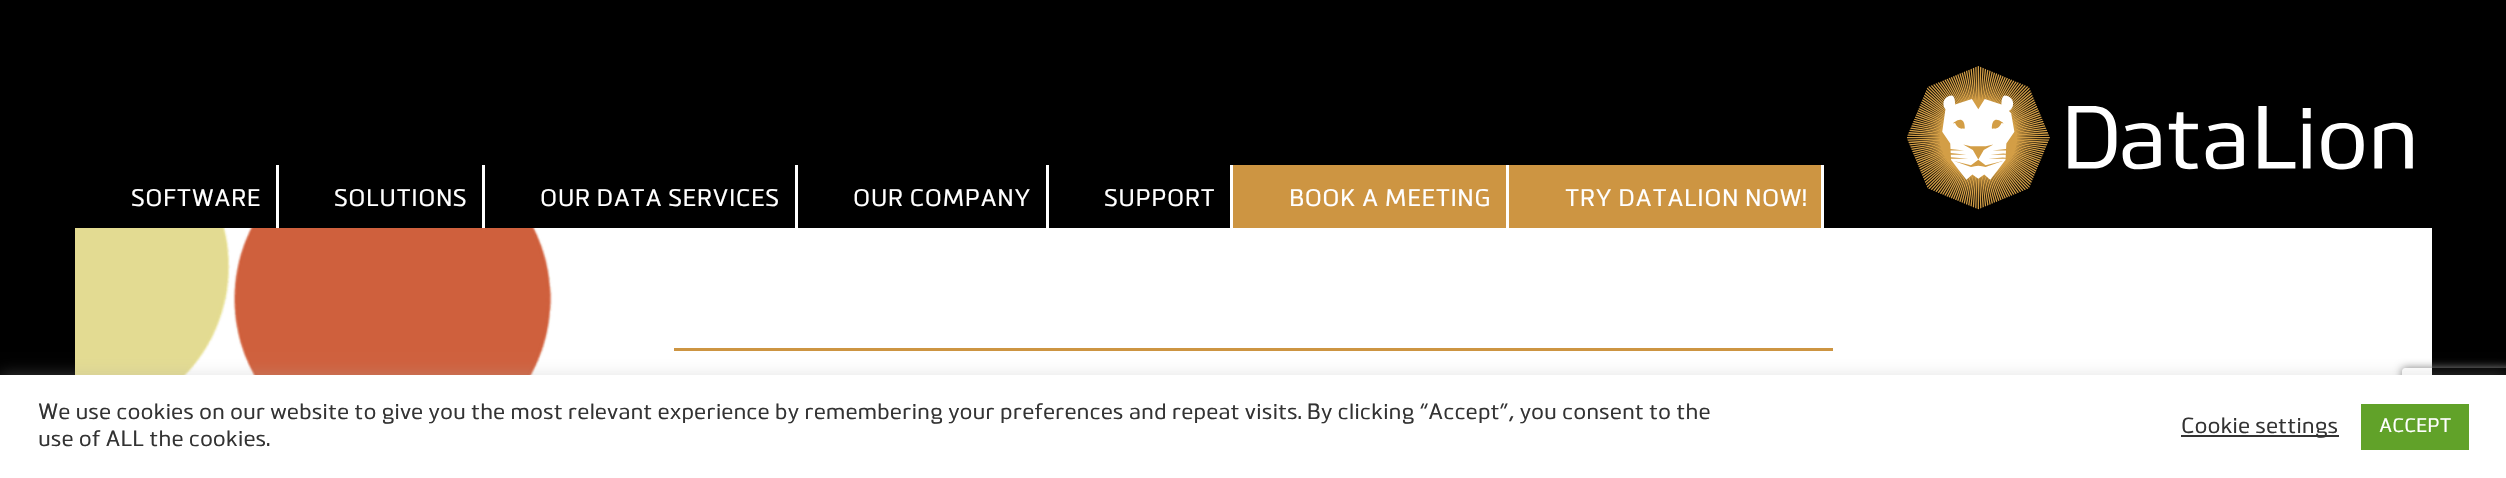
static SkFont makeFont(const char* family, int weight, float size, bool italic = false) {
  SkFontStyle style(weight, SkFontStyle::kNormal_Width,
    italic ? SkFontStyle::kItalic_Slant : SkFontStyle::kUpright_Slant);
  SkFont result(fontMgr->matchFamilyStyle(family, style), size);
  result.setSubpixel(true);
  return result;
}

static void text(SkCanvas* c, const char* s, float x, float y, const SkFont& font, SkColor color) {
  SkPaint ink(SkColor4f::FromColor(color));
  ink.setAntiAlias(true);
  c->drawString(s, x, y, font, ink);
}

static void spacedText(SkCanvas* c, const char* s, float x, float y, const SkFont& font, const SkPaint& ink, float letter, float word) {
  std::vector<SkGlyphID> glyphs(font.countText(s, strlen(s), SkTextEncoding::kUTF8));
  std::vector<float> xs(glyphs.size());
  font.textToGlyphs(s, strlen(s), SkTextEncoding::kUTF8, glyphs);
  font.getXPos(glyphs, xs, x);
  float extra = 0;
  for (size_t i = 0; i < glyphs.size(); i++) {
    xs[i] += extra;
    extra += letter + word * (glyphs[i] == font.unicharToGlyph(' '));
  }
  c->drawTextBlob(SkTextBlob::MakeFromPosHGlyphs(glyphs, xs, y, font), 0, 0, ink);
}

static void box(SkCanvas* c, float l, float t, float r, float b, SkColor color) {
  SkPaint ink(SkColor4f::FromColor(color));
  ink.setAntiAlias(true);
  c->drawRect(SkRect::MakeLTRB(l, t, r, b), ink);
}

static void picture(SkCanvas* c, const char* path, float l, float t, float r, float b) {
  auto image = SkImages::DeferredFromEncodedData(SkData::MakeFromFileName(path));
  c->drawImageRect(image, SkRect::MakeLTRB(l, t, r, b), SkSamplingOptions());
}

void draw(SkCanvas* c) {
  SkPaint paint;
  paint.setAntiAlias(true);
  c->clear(0xff000000);
  box(c, 276, 165, 279, 228, 0xffffffff);
  SkFont face1 = makeFont("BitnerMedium", 400, 24);
  paint.setColor(0xffffffff);
  spacedText(c, "SOFTWARE", 131, 206, face1, paint, 0.5f, 0);
  box(c, 482, 165, 485, 228, 0xffffffff);
  spacedText(c, "SOLUTIONS", 334, 206, face1, paint, 0.5f, 0);
  box(c, 795, 165, 798, 228, 0xffffffff);
  spacedText(c, "OUR DATA SERVICES", 540, 206, face1, paint, 0.5f, 0);
  box(c, 1046, 165, 1049, 228, 0xffffffff);
  spacedText(c, "OUR COMPANY", 853, 206, face1, paint, 0.5f, 0);
  box(c, 1230, 165, 1233, 228, 0xffffffff);
  spacedText(c, "SUPPORT", 1104, 206, face1, paint, 0.5f, 0);
  box(c, 1233, 165, 1506, 228, 0xffcd9542);
  box(c, 1506, 165, 1509, 228, 0xffffffff);
  spacedText(c, "BOOK A MEETING", 1289, 206, face1, paint, 0.5f, 0);
  box(c, 1509, 165, 1821, 228, 0xffcd9542);
  box(c, 1821, 165, 1824, 228, 0xffffffff);
  spacedText(c, "TRY DATALION NOW!", 1565, 206, face1, paint, 0.5f, 0);
  picture(c, "img_01.png", 1907, 66, 2413, 210);
  box(c, 183, 228, 2432, 375, 0xffffffff);
  picture(c, "img_02.png", 75, 228, 553, 375);
  box(c, 674, 348, 1833, 351, 0xffcd9542);
  c->save();
  c->clipPath(SkPathBuilder(SkPathFillType::kEvenOdd).moveTo(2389, 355).lineTo(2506, 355).lineTo(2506, 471).lineTo(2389, 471).close().moveTo(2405, 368).lineTo(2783, 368).cubicTo(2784.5f, 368, 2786, 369.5f, 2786, 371).lineTo(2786, 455).cubicTo(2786, 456.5f, 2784.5f, 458, 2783, 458).lineTo(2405, 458).cubicTo(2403.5f, 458, 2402, 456.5f, 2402, 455).lineTo(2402, 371).cubicTo(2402, 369.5f, 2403.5f, 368, 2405, 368).close().detach(), true);
  paint.setColor(0xff808080);
  paint.setMaskFilter(SkMaskFilter::MakeBlur(kNormal_SkBlurStyle, 4));
  c->drawRoundRect(SkRect::MakeLTRB(2402, 368, 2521, 458), 3, 3, paint);
  paint.setMaskFilter(nullptr);
  c->restore();
  paint.setColor(0x4dacabab);
  paint.setMaskFilter(SkMaskFilter::MakeBlur(kNormal_SkBlurStyle, 7.5f));
  c->drawRect(SkRect::MakeLTRB(0, 374, 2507, 477), paint);
  paint.setMaskFilter(nullptr);
  box(c, 0, 375, 2506, 478, 0xffffffff);
  SkFont face2 = makeFont("BitnerMedium", 400, 22);
  text(c, "We use cookies on our website to give you the most relevant experience by remembering your preferences and repeat visits. By clicking “Accept”, you consent to the", 38, 419, face2, 0xff333333);
  text(c, "use of ALL the cookies.", 38, 446, face2, 0xff333333);
  box(c, 2181, 435, 2339, 437, 0xff333333);
  text(c, "Cookie settings", 2181, 433, face2, 0xff333333);
  box(c, 2361, 404, 2469, 450, 0xff61a229);
  SkFont face3 = makeFont("BitnerMedium", 400, 19.5f);
  text(c, "ACCEPT", 2379, 432, face3, 0xffffffff);
}
